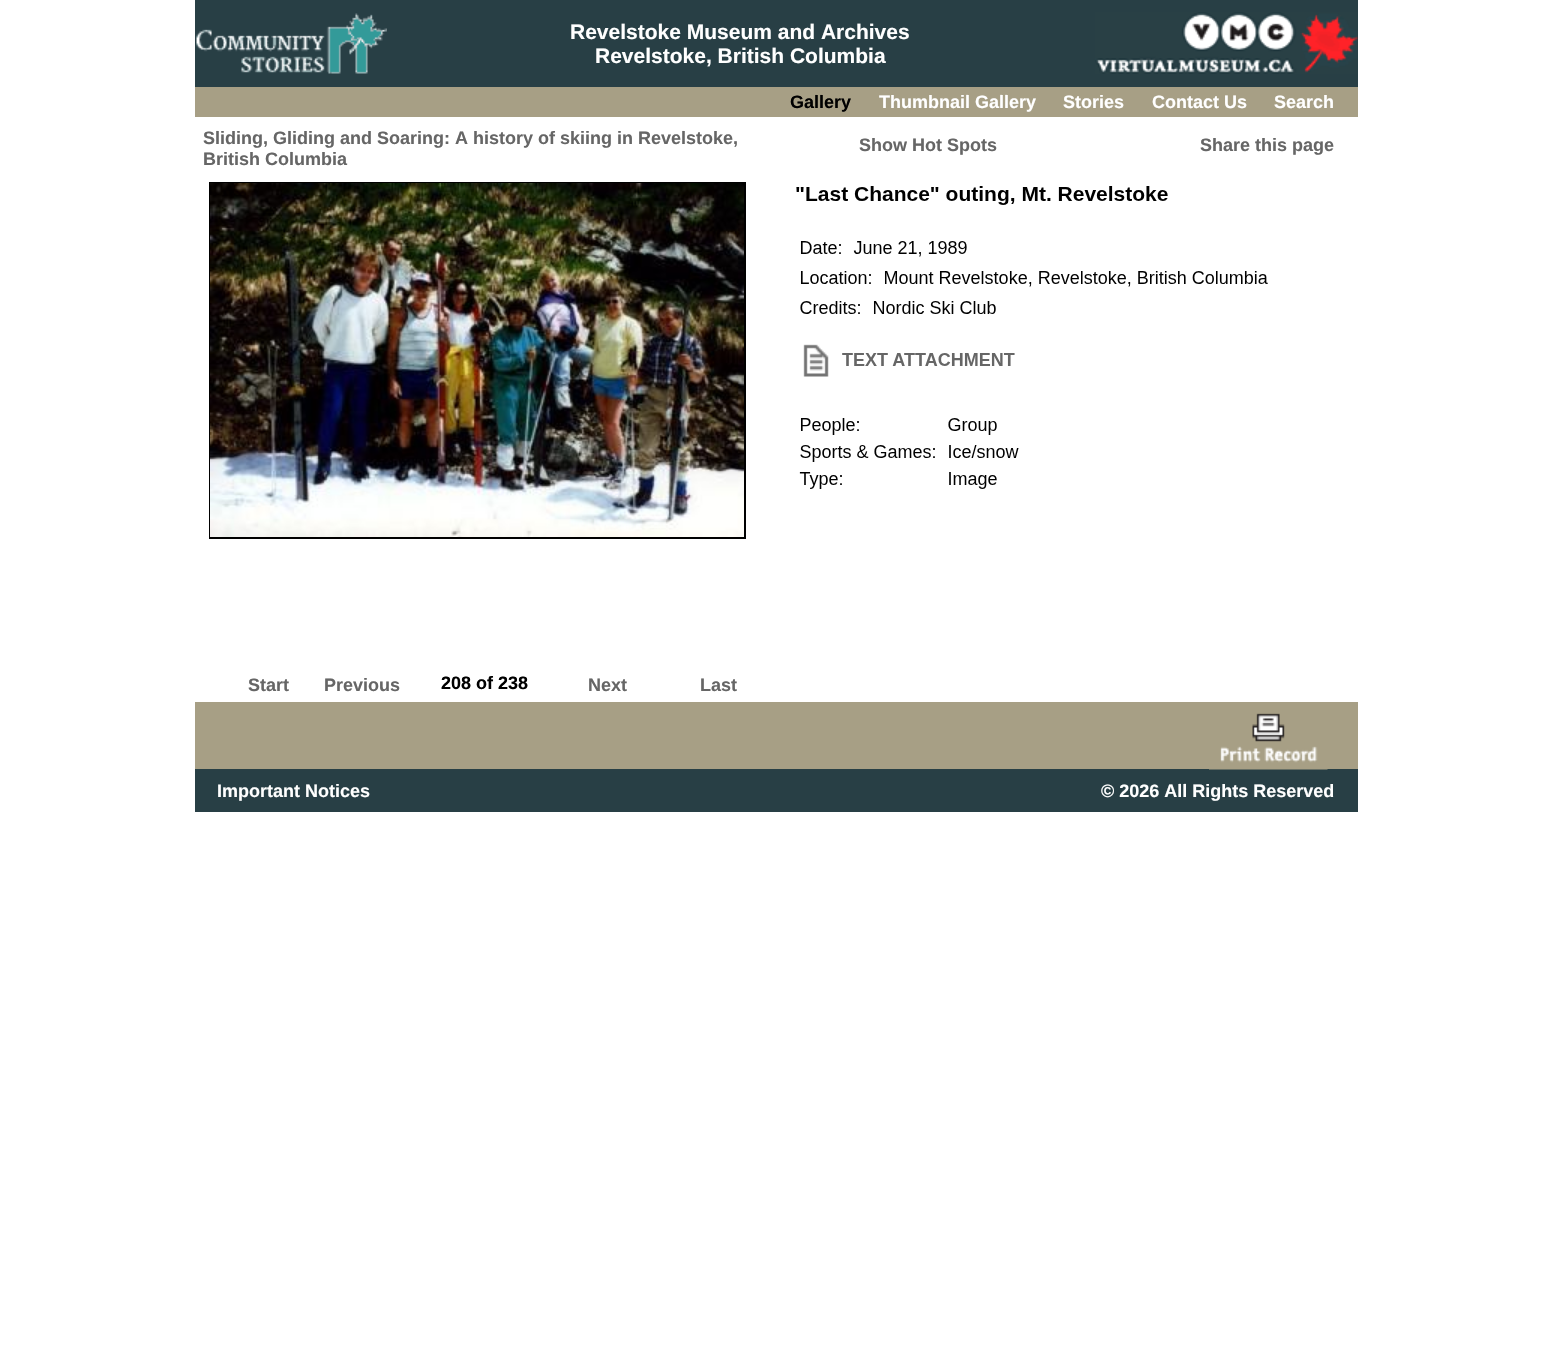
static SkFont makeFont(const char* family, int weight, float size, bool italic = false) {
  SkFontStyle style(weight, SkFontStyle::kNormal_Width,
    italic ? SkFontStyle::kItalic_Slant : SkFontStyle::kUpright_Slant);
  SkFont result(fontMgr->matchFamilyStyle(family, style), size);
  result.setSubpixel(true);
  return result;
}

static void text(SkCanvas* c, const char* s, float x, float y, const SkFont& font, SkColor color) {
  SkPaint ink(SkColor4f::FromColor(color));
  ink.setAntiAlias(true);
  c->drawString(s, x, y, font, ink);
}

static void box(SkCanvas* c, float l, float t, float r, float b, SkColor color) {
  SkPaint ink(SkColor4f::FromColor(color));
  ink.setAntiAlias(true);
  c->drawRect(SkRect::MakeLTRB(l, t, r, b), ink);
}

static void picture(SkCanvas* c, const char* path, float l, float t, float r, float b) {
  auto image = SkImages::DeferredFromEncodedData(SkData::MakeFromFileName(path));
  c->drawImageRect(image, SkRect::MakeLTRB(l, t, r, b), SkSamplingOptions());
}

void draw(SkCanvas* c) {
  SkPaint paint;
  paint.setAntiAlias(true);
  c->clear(0xffffffff);
  box(c, 195, 0, 1358, 87, 0xff283f45);
  picture(c, "img_01.png", 196, 13, 387, 74);
  SkFont face1 = makeFont("Liberation Sans", 700, 21);
  text(c, "Revelstoke Museum and Archives", 570, 39, face1, 0xffffffff);
  text(c, "Revelstoke, British Columbia", 595, 63, face1, 0xffffffff);
  picture(c, "img_02.png", 1095, 12, 1358, 74);
  box(c, 195, 87, 1358, 117, 0xffa79f85);
  SkFont face2 = makeFont("Liberation Sans", 700, 18);
  text(c, "Gallery", 790, 108, face2, 0xff000000);
  text(c, "Thumbnail Gallery", 879, 108, face2, 0xffffffff);
  text(c, "Stories", 1063, 108, face2, 0xffffffff);
  text(c, "Contact Us", 1152, 108, face2, 0xffffffff);
  text(c, "Search", 1274, 108, face2, 0xffffffff);
  text(c, "Sliding, Gliding and Soaring: A history of skiing in Revelstoke,", 203, 144, face2, 0xff666666);
  text(c, "British Columbia", 203, 165, face2, 0xff666666);
  text(c, "Show Hot Spots", 859, 151, face2, 0xff666666);
  text(c, "Share this page", 1200, 151, face2, 0xff666666);
  paint.setStyle(SkPaint::kStroke_Style);
  paint.setStrokeWidth(2);
  paint.setColor(0xff000000);
  c->drawRect(SkRect::MakeLTRB(210, 183, 745, 538), paint);
  picture(c, "img_03.png", 210, 183, 744, 537);
  picture(c, "img_04.png", 796, 186, 1268, 489);
  text(c, "Start", 248, 691, face2, 0xff666666);
  text(c, "Previous", 324, 691, face2, 0xff666666);
  text(c, "208 of 238", 441, 689, face2, 0xff000000);
  text(c, "Next", 588, 691, face2, 0xff666666);
  text(c, "Last", 700, 691, face2, 0xff666666);
  box(c, 195, 702, 1358, 769, 0xffa79f85);
  box(c, 195, 769, 1358, 812, 0xff283f45);
  picture(c, "img_05.png", 1209, 713, 1328, 770);
  text(c, "Important Notices", 217, 797, face2, 0xffffffff);
  text(c, "© 2026 All Rights Reserved", 1101, 797, face2, 0xffffffff);
}
